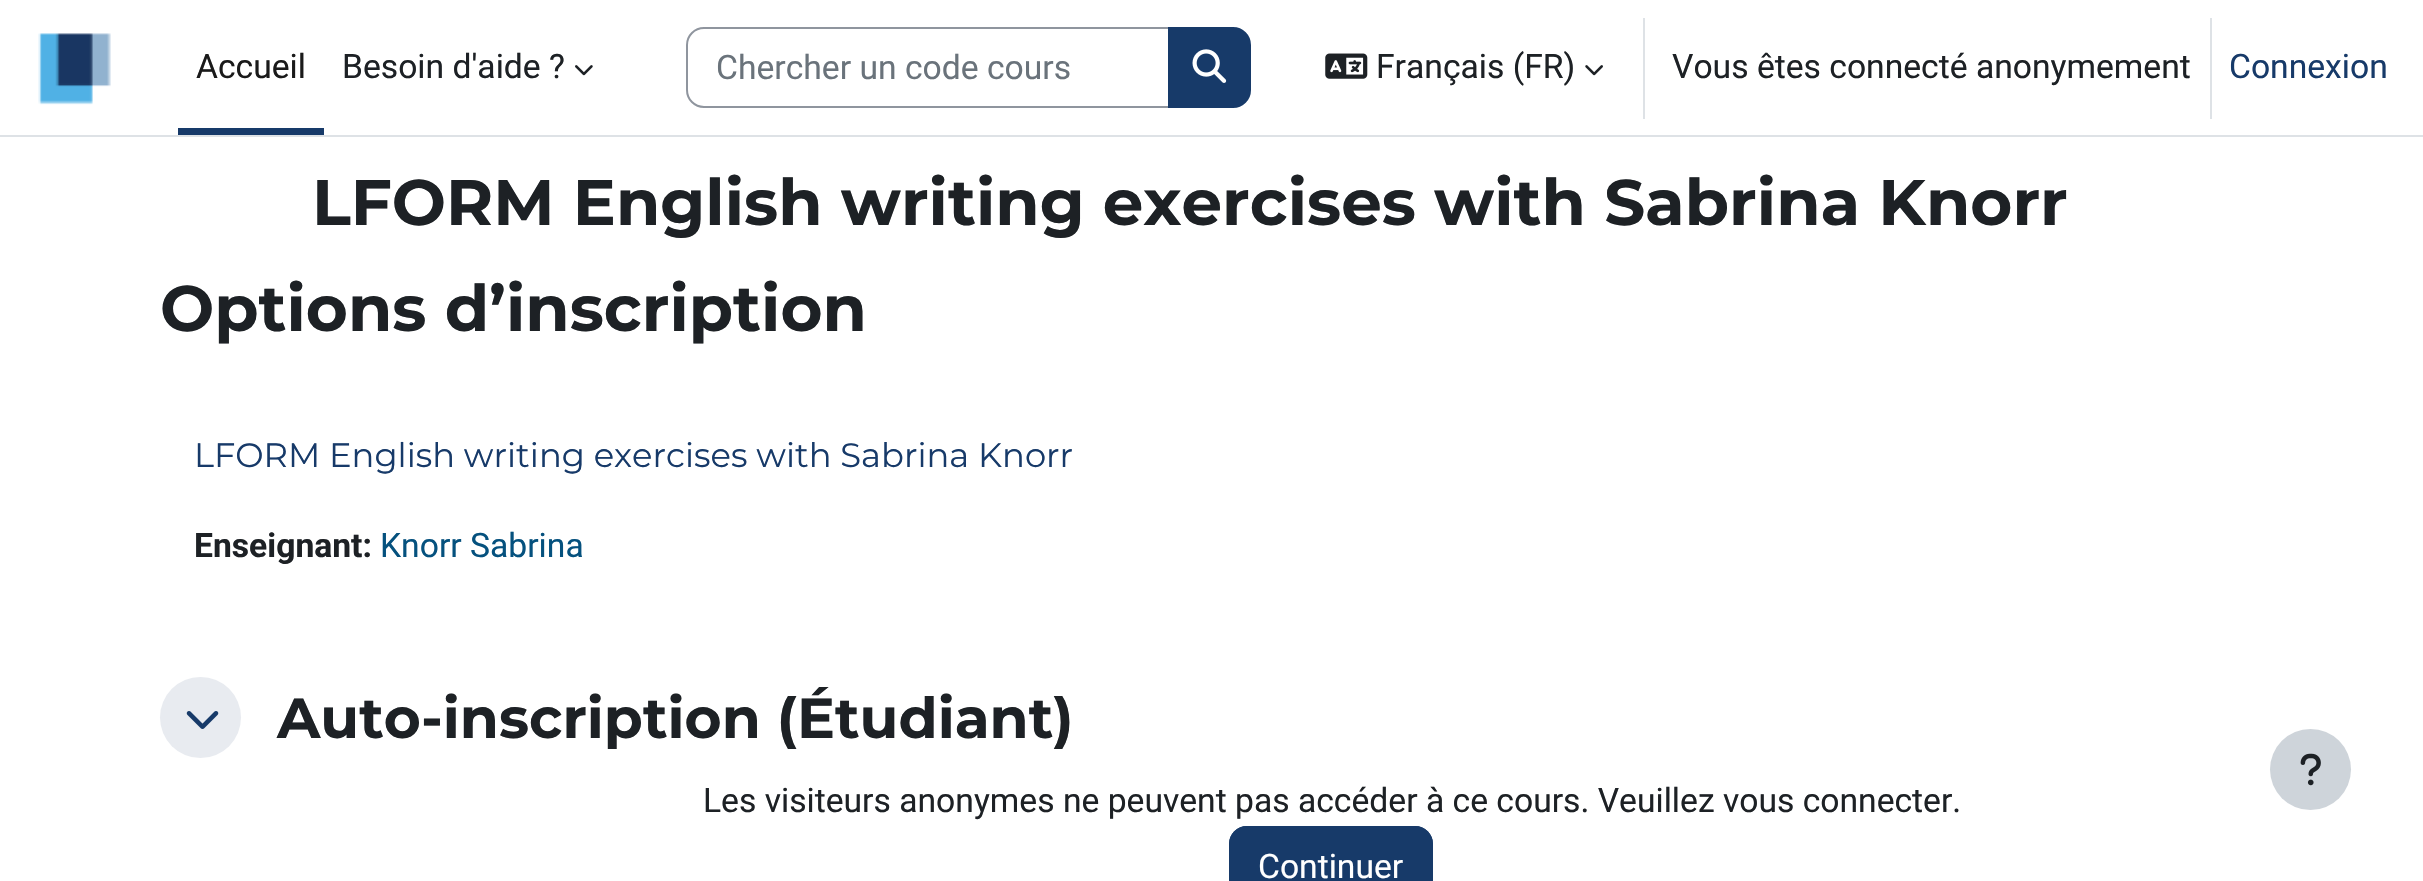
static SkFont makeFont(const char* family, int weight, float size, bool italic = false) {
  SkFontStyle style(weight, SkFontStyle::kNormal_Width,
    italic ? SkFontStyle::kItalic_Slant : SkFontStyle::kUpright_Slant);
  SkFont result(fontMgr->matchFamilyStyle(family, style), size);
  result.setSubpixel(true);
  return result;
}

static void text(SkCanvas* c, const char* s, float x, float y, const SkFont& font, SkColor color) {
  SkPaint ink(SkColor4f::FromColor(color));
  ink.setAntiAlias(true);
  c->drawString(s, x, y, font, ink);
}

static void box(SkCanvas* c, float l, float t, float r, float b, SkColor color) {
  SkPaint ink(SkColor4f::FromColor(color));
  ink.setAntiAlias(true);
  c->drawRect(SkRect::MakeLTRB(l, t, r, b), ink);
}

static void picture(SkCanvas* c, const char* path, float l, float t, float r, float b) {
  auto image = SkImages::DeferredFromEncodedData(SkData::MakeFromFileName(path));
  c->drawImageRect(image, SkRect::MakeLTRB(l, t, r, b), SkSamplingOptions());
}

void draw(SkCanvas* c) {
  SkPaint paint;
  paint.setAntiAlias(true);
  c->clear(0xffffffff);
  box(c, 0, 135, 2423, 137, 0xffdee2e6);
  picture(c, "img_01.png", 38, 33, 111, 105);
  box(c, 178, 128, 324, 135, 0xff173a69);
  SkFont face1 = makeFont("Roboto", 400, 33.65f);
  text(c, "Accueil", 196, 78, face1, 0xff1a1a1a);
  text(c, "Besoin d'aide ?", 342, 78, face1, 0xff1d2125);
  picture(c, "img_02.png", 575, 65, 593, 76);
  paint.setStyle(SkPaint::kStroke_Style);
  paint.setStrokeWidth(2);
  paint.setColor(0xff8f959e);
  c->drawPath(SkPathBuilder().moveTo(704, 28).lineTo(1169, 28).lineTo(1169, 107).lineTo(704, 107).cubicTo(694.5f, 107, 687, 99.5f, 687, 90).lineTo(687, 45).cubicTo(687, 35.5f, 694.5f, 28, 704, 28).close().detach(), paint);
  text(c, "Chercher un code cours", 716, 79, face1, 0xff6a737b);
  paint.setStyle(SkPaint::kFill_Style);
  paint.setColor(0xff173a69);
  c->drawPath(SkPathBuilder().moveTo(1169, 28).lineTo(1233, 28).cubicTo(1242.5f, 28, 1250, 35.5f, 1250, 45).lineTo(1250, 90).cubicTo(1250, 99.5f, 1242.5f, 107, 1233, 107).lineTo(1169, 107).close().detach(), paint);
  paint.setStyle(SkPaint::kStroke_Style);
  c->drawPath(SkPathBuilder().moveTo(1169, 28).lineTo(1233, 28).cubicTo(1242.5f, 28, 1250, 35.5f, 1250, 45).lineTo(1250, 90).cubicTo(1250, 99.5f, 1242.5f, 107, 1233, 107).lineTo(1169, 107).close().detach(), paint);
  picture(c, "img_03.png", 1192, 49, 1227, 83);
  picture(c, "img_04.png", 1325, 53, 1368, 79);
  text(c, "Français (FR)", 1376, 78, face1, 0xff1d2125);
  picture(c, "img_05.png", 1585, 65, 1603, 76);
  box(c, 1643, 18, 1645, 119, 0xffdee2e6);
  text(c, "Vous êtes connecté anonymement", 1672, 78, face1, 0xff1d2125);
  box(c, 2210, 18, 2212, 119, 0xffdee2e6);
  text(c, "Connexion", 2229, 78, face1, 0xff173a69);
  SkFont face2 = makeFont("Montserrat", 700, 64.25f);
  text(c, "LFORM English writing exercises with Sabrina Knorr", 312, 225, face2, 0xff1d2125);
  text(c, "Options d’inscription", 160, 331, face2, 0xff1d2125);
  SkFont face3 = makeFont("Montserrat", 400, 33.75f);
  text(c, "LFORM English writing exercises with Sabrina Knorr", 194, 467, face3, 0xff173a69);
  SkFont face4 = makeFont("Roboto", 700, 33.65f);
  text(c, "Enseignant:", 194, 557, face4, 0xff1d2125);
  text(c, "Knorr Sabrina", 380, 557, face1, 0xff05517e);
  paint.setStyle(SkPaint::kFill_Style);
  paint.setColor(0xffe8ebf0);
  c->drawCircle(200.5f, 717.5f, 40.5f, paint);
  picture(c, "img_06.png", 186, 711, 219, 729);
  SkFont face5 = makeFont("Montserrat", 700, 56.6f);
  text(c, "Auto-inscription (Étudiant)", 277, 738, face5, 0xff1d2125);
  text(c, "Les visiteurs anonymes ne peuvent pas accéder à ce cours. Veuillez vous connecter.", 703, 812, face1, 0xff1d2125);
  paint.setColor(0xff173a69);
  c->drawPath(SkPathBuilder().moveTo(1247, 826).lineTo(1415, 826).cubicTo(1425, 826, 1433, 834, 1433, 844).lineTo(1433, 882).lineTo(1229, 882).lineTo(1229, 844).cubicTo(1229, 834, 1237, 826, 1247, 826).close().detach(), paint);
  paint.setStyle(SkPaint::kStroke_Style);
  c->drawRoundRect(SkRect::MakeLTRB(1230, 827, 1432, 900), 17, 17, paint);
  text(c, "Continuer", 1258, 878, face1, 0xffffffff);
  paint.setStyle(SkPaint::kFill_Style);
  paint.setColor(0xffced4da);
  c->drawCircle(2310.5f, 769.5f, 40.5f, paint);
  picture(c, "img_07.png", 2300, 753, 2321, 786);
}
